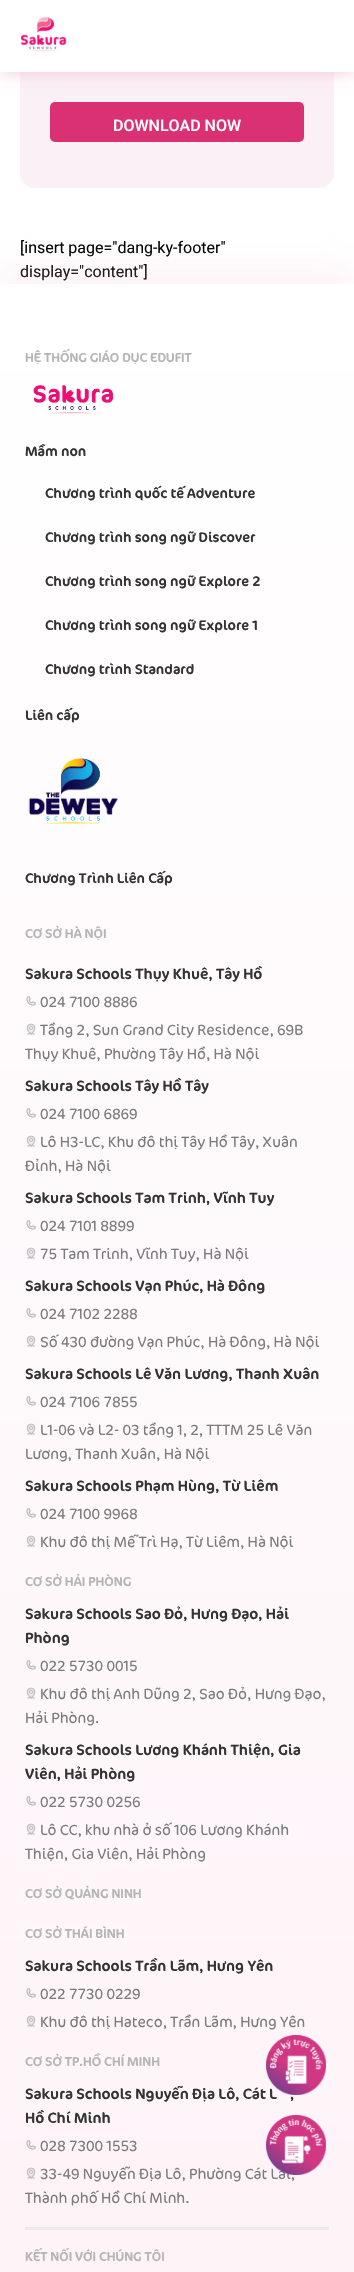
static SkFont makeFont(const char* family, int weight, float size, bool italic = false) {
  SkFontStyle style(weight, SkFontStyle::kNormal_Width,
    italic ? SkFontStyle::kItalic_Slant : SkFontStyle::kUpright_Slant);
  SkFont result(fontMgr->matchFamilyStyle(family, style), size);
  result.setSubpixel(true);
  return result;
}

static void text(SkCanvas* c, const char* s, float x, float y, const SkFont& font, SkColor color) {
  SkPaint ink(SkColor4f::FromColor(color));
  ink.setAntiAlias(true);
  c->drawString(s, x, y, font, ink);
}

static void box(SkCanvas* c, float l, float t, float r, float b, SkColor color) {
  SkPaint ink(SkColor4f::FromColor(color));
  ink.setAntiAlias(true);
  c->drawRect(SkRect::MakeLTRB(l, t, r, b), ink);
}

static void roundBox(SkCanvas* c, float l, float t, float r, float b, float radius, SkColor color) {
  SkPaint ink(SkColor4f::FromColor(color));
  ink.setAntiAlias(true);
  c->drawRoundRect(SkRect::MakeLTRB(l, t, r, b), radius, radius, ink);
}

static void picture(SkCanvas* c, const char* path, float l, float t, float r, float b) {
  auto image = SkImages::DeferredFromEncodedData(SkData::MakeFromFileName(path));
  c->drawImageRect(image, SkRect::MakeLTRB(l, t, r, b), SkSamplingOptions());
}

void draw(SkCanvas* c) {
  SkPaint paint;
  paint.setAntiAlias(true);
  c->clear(0xffffffff);
  roundBox(c, 20, -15, 334, 188, 15, 0xfffbf0f5);
  paint.setColor(0xfff5c6dc);
  paint.setMaskFilter(SkMaskFilter::MakeBlur(kNormal_SkBlurStyle, 8));
  c->drawRect(SkRect::MakeLTRB(0, 0, 354, 72), paint);
  paint.setMaskFilter(nullptr);
  box(c, 0, 0, 354, 72, 0xffffffff);
  picture(c, "img_01.png", 21, 17, 67, 52);
  roundBox(c, 50, 102, 304, 142, 5, 0xffd93173);
  SkFont face1 = makeFont("Roboto", 500, 16);
  text(c, "DOWNLOAD NOW", 113, 131, face1, 0xffffffff);
  SkFont face2 = makeFont("Roboto", 400, 16);
  text(c, "[insert page=\"dang-ky-footer\"", 20, 253, face2, 0xff000000);
  text(c, "display=\"content\"]", 20, 277, face2, 0xff000000);
  paint.setColor(0x33f5c6dc);
  paint.setMaskFilter(SkMaskFilter::MakeBlur(kNormal_SkBlurStyle, 16));
  c->drawRect(SkRect::MakeLTRB(0, 264, 354, 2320), paint);
  paint.setMaskFilter(nullptr);
  {
    const SkColor colors[] = {0xffffffff, 0xfffdedf4};
    const float stops[] = {0, 1};
    const SkPoint ends[] = {{177, 284}, {177, 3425}};
    paint.setShader(SkGradientShader::MakeLinear(ends, colors, stops, 2, SkTileMode::kClamp));
    paint.setAlpha(255);
  }
  c->drawRect(SkRect::MakeLTRB(0, 284, 354, 2272), paint);
  SkFont face3 = makeFont("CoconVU", 700, 13);
  text(c, "HỆ THỐNG GIÁO DỤC EDUFIT", 25, 362, face3, 0xffb5b5b5);
  picture(c, "img_02.png", 33, 385, 114, 414);
  SkFont face4 = makeFont("CoconVU", 700, 14);
  text(c, "Mầm non", 25, 456, face4, 0xff333333);
  text(c, "Chương trình quốc tế Adventure", 45, 498, face4, 0xff333333);
  text(c, "Chương trình song ngữ Discover", 45, 542, face4, 0xff333333);
  text(c, "Chương trình song ngữ Explore 2", 45, 586, face4, 0xff333333);
  text(c, "Chương trình song ngữ Explore 1", 45, 630, face4, 0xff333333);
  text(c, "Chương trình Standard", 45, 674, face4, 0xff333333);
  text(c, "Liên cấp", 25, 720, face4, 0xff333333);
  picture(c, "img_03.png", 28, 758, 118, 824);
  paint.setShader(nullptr);
  paint.setColor(0xffffffff);
  c->drawCircle(13.5f, 880.5f, 1.5f, paint);
  text(c, "Chương Trình Liên Cấp", 25, 883, face4, 0xff333333);
  text(c, "CƠ SỞ HÀ NỘI", 25, 938, face3, 0xffb5b5b5);
  SkFont face5 = makeFont("CoconVU", 700, 15);
  text(c, "Sakura Schools Thụy Khuê, Tây Hồ", 25, 979, face5, 0xff333333);
  picture(c, "img_04.png", 26, 996, 36, 1006);
  SkFont face6 = makeFont("CoconVU", 400, 15);
  text(c, "024 7100 8886", 40, 1007, face6, 0xff7b7b7b);
  picture(c, "img_05.png", 26, 1023, 36, 1035);
  text(c, "Tầng 2, Sun Grand City Residence, 69B", 40, 1035, face6, 0xff7b7b7b);
  text(c, "Thụy Khuê, Phường Tây Hồ, Hà Nội", 25, 1059, face6, 0xff7b7b7b);
  text(c, "Sakura Schools Tây Hồ Tây", 25, 1091, face5, 0xff333333);
  picture(c, "img_06.png", 26, 1108, 36, 1118);
  text(c, "024 7100 6869", 40, 1119, face6, 0xff7b7b7b);
  picture(c, "img_07.png", 26, 1135, 36, 1147);
  text(c, "Lô H3-LC, Khu đô thị Tây Hồ Tây, Xuân", 40, 1147, face6, 0xff7b7b7b);
  text(c, "Đỉnh, Hà Nội", 25, 1171, face6, 0xff7b7b7b);
  text(c, "Sakura Schools Tam Trinh, Vĩnh Tuy", 25, 1203, face5, 0xff333333);
  picture(c, "img_06.png", 26, 1220, 36, 1230);
  text(c, "024 7101 8899", 40, 1231, face6, 0xff7b7b7b);
  picture(c, "img_08.png", 26, 1247, 36, 1259);
  text(c, "75 Tam Trinh, Vĩnh Tuy, Hà Nội", 40, 1259, face6, 0xff7b7b7b);
  text(c, "Sakura Schools Vạn Phúc, Hà Đông", 25, 1291, face5, 0xff333333);
  picture(c, "img_09.png", 26, 1308, 36, 1318);
  text(c, "024 7102 2288", 40, 1319, face6, 0xff7b7b7b);
  picture(c, "img_10.png", 26, 1335, 36, 1347);
  text(c, "Số 430 đường Vạn Phúc, Hà Đông, Hà Nội", 40, 1347, face6, 0xff7b7b7b);
  text(c, "Sakura Schools Lê Văn Lương, Thanh Xuân", 25, 1379, face5, 0xff333333);
  picture(c, "img_09.png", 26, 1396, 36, 1406);
  text(c, "024 7106 7855", 40, 1407, face6, 0xff7b7b7b);
  picture(c, "img_11.png", 26, 1423, 36, 1435);
  text(c, "L1-06 và L2- 03 tầng 1, 2, TTTM 25 Lê Văn", 40, 1435, face6, 0xff7b7b7b);
  text(c, "Lương, Thanh Xuân, Hà Nội", 25, 1459, face6, 0xff7b7b7b);
  text(c, "Sakura Schools Phạm Hùng, Từ Liêm", 25, 1491, face5, 0xff333333);
  picture(c, "img_12.png", 26, 1508, 36, 1518);
  text(c, "024 7100 9968", 40, 1519, face6, 0xff7b7b7b);
  picture(c, "img_11.png", 26, 1535, 36, 1547);
  text(c, "Khu đô thị Mễ Trì Hạ, Từ Liêm, Hà Nội", 40, 1547, face6, 0xff7b7b7b);
  text(c, "CƠ SỞ HẢI PHÒNG", 25, 1586, face3, 0xffb5b5b5);
  text(c, "Sakura Schools Sao Đỏ, Hưng Đạo, Hải", 25, 1619, face5, 0xff333333);
  text(c, "Phòng", 25, 1643, face5, 0xff333333);
  picture(c, "img_13.png", 26, 1660, 36, 1670);
  text(c, "022 5730 0015", 40, 1671, face6, 0xff7b7b7b);
  picture(c, "img_14.png", 26, 1687, 36, 1699);
  text(c, "Khu đô thị Anh Dũng 2, Sao Đỏ, Hưng Đạo,", 40, 1699, face6, 0xff7b7b7b);
  text(c, "Hải Phòng.", 25, 1723, face6, 0xff7b7b7b);
  text(c, "Sakura Schools Lương Khánh Thiện, Gia", 25, 1755, face5, 0xff333333);
  text(c, "Viên, Hải Phòng", 25, 1779, face5, 0xff333333);
  picture(c, "img_15.png", 26, 1796, 36, 1806);
  text(c, "022 5730 0256", 40, 1807, face6, 0xff7b7b7b);
  picture(c, "img_16.png", 26, 1823, 36, 1835);
  text(c, "Lô CC, khu nhà ở số 106 Lương Khánh", 40, 1835, face6, 0xff7b7b7b);
  text(c, "Thiện, Gia Viên, Hải Phòng", 25, 1859, face6, 0xff7b7b7b);
  text(c, "CƠ SỞ QUẢNG NINH", 25, 1898, face3, 0xffb5b5b5);
  text(c, "CƠ SỞ THÁI BÌNH", 25, 1938, face3, 0xffb5b5b5);
  text(c, "Sakura Schools Trần Lãm, Hưng Yên", 25, 1971, face5, 0xff333333);
  picture(c, "img_17.png", 26, 1988, 36, 1998);
  text(c, "022 7730 0229", 40, 1999, face6, 0xff7b7b7b);
  picture(c, "img_18.png", 26, 2015, 36, 2027);
  text(c, "Khu đô thị Hateco, Trần Lãm, Hưng Yên", 40, 2027, face6, 0xff7b7b7b);
  text(c, "CƠ SỞ TP.HỒ CHÍ MINH", 25, 2066, face3, 0xffb5b5b5);
  text(c, "Sakura Schools Nguyễn Địa Lô, Cát L", 25, 2099, face5, 0xff333333);
  text(c, ",", 290, 2099, face5, 0xff333333);
  text(c, "Hồ Chí Minh", 25, 2123, face5, 0xff333333);
  picture(c, "img_19.png", 26, 2140, 36, 2150);
  text(c, "028 7300 1553", 40, 2151, face6, 0xff7b7b7b);
  picture(c, "img_20.png", 26, 2167, 36, 2179);
  text(c, "33-49 Nguyễn Địa Lô, Phường Cát Lái,", 40, 2179, face6, 0xff7b7b7b);
  text(c, "Thành phố Hồ Chí Minh.", 25, 2203, face6, 0xff7b7b7b);
  box(c, 25, 2227, 329, 2230, 0xffebebeb);
  text(c, "KẾT NỐI VỚI CHÚNG TÔI", 25, 2261, face3, 0xffb5b5b5);
  picture(c, "img_21.png", 266, 2035, 326, 2095);
  picture(c, "img_22.png", 266, 2115, 326, 2175);
}
